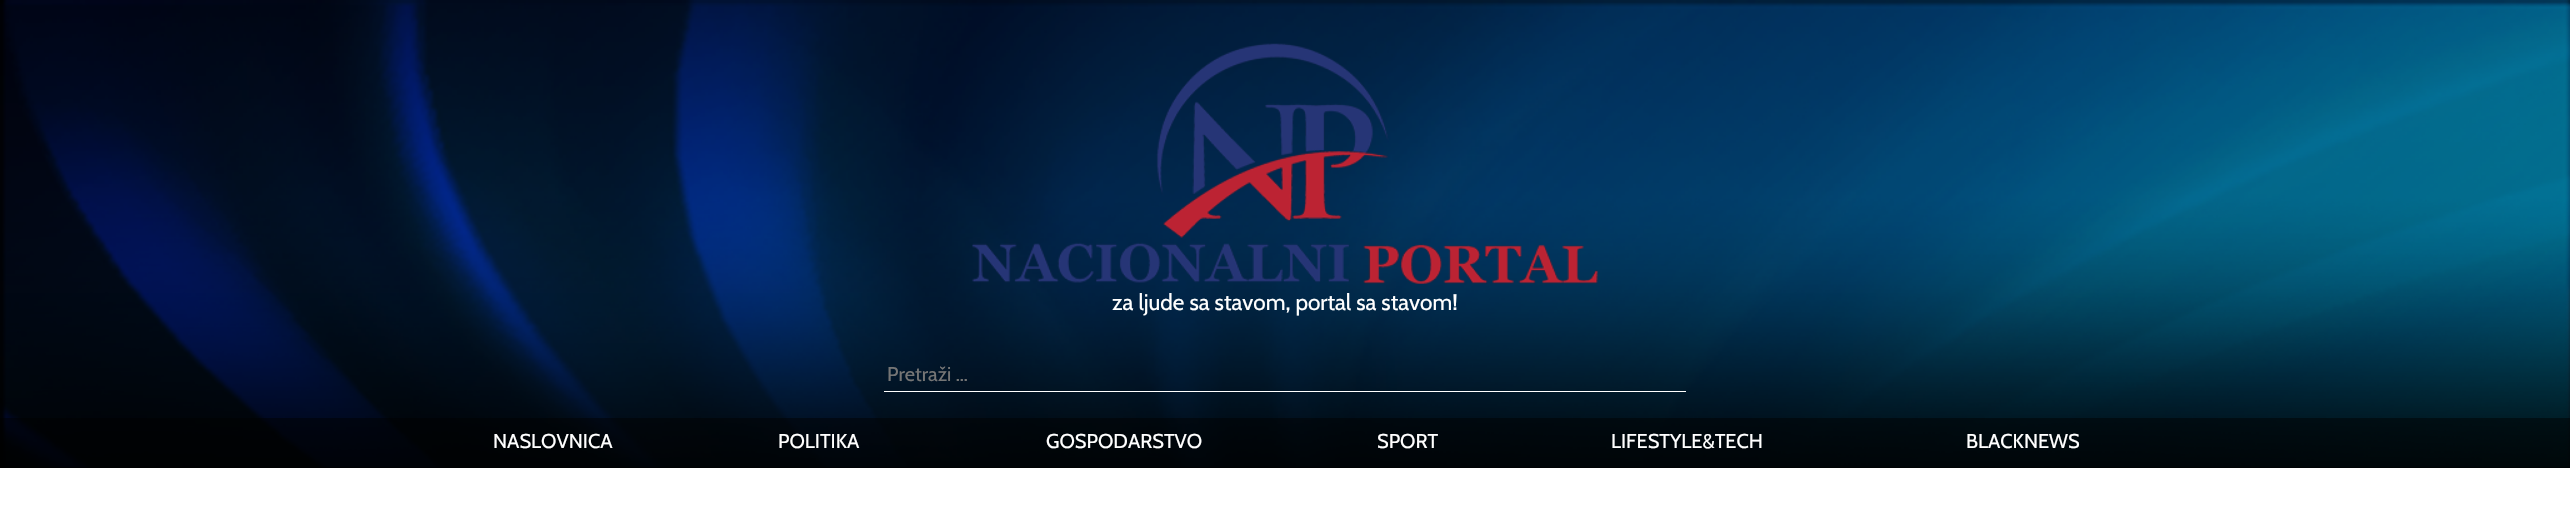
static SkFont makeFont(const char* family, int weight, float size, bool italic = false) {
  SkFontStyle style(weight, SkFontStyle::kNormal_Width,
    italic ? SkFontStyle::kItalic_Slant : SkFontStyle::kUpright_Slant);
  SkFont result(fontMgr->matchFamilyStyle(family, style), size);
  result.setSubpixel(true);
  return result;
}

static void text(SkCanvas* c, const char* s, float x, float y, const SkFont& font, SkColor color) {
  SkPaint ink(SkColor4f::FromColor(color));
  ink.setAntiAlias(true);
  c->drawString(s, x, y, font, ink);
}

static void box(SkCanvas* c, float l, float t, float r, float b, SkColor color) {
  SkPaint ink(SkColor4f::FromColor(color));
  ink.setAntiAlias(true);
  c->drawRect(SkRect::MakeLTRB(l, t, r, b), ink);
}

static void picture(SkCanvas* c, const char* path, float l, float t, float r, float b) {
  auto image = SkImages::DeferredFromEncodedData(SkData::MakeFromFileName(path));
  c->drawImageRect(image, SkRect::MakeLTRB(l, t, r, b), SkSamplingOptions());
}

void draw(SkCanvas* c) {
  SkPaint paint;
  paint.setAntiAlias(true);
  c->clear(0xffffffff);
  box(c, 0, 0, 2570, 468, 0xff000000);
  picture(c, "img_01.png", 0, 0, 2570, 468);
  picture(c, "img_02.png", 972, 43, 1598, 284);
  SkFont face1 = makeFont("Cabin", 400, 22.5f);
  text(c, "za ljude sa stavom, portal sa stavom!", 1112, 310, face1, 0xffffffff);
  box(c, 884, 391, 1686, 392, 0xffffffff);
  SkFont face2 = makeFont("Cabin", 400, 20);
  text(c, "Pretraži …", 887, 381, face2, 0xff757575);
  box(c, 0, 418, 2570, 468, 0x80000000);
  text(c, "NASLOVNICA", 493, 448, face2, 0xffffffff);
  text(c, "POLITIKA", 778, 448, face2, 0xffffffff);
  text(c, "GOSPODARSTVO", 1046, 448, face2, 0xffffffff);
  text(c, "SPORT", 1377, 448, face2, 0xffffffff);
  text(c, "LIFESTYLE&TECH", 1611, 448, face2, 0xffffffff);
  text(c, "BLACKNEWS", 1966, 448, face2, 0xffffffff);
}
